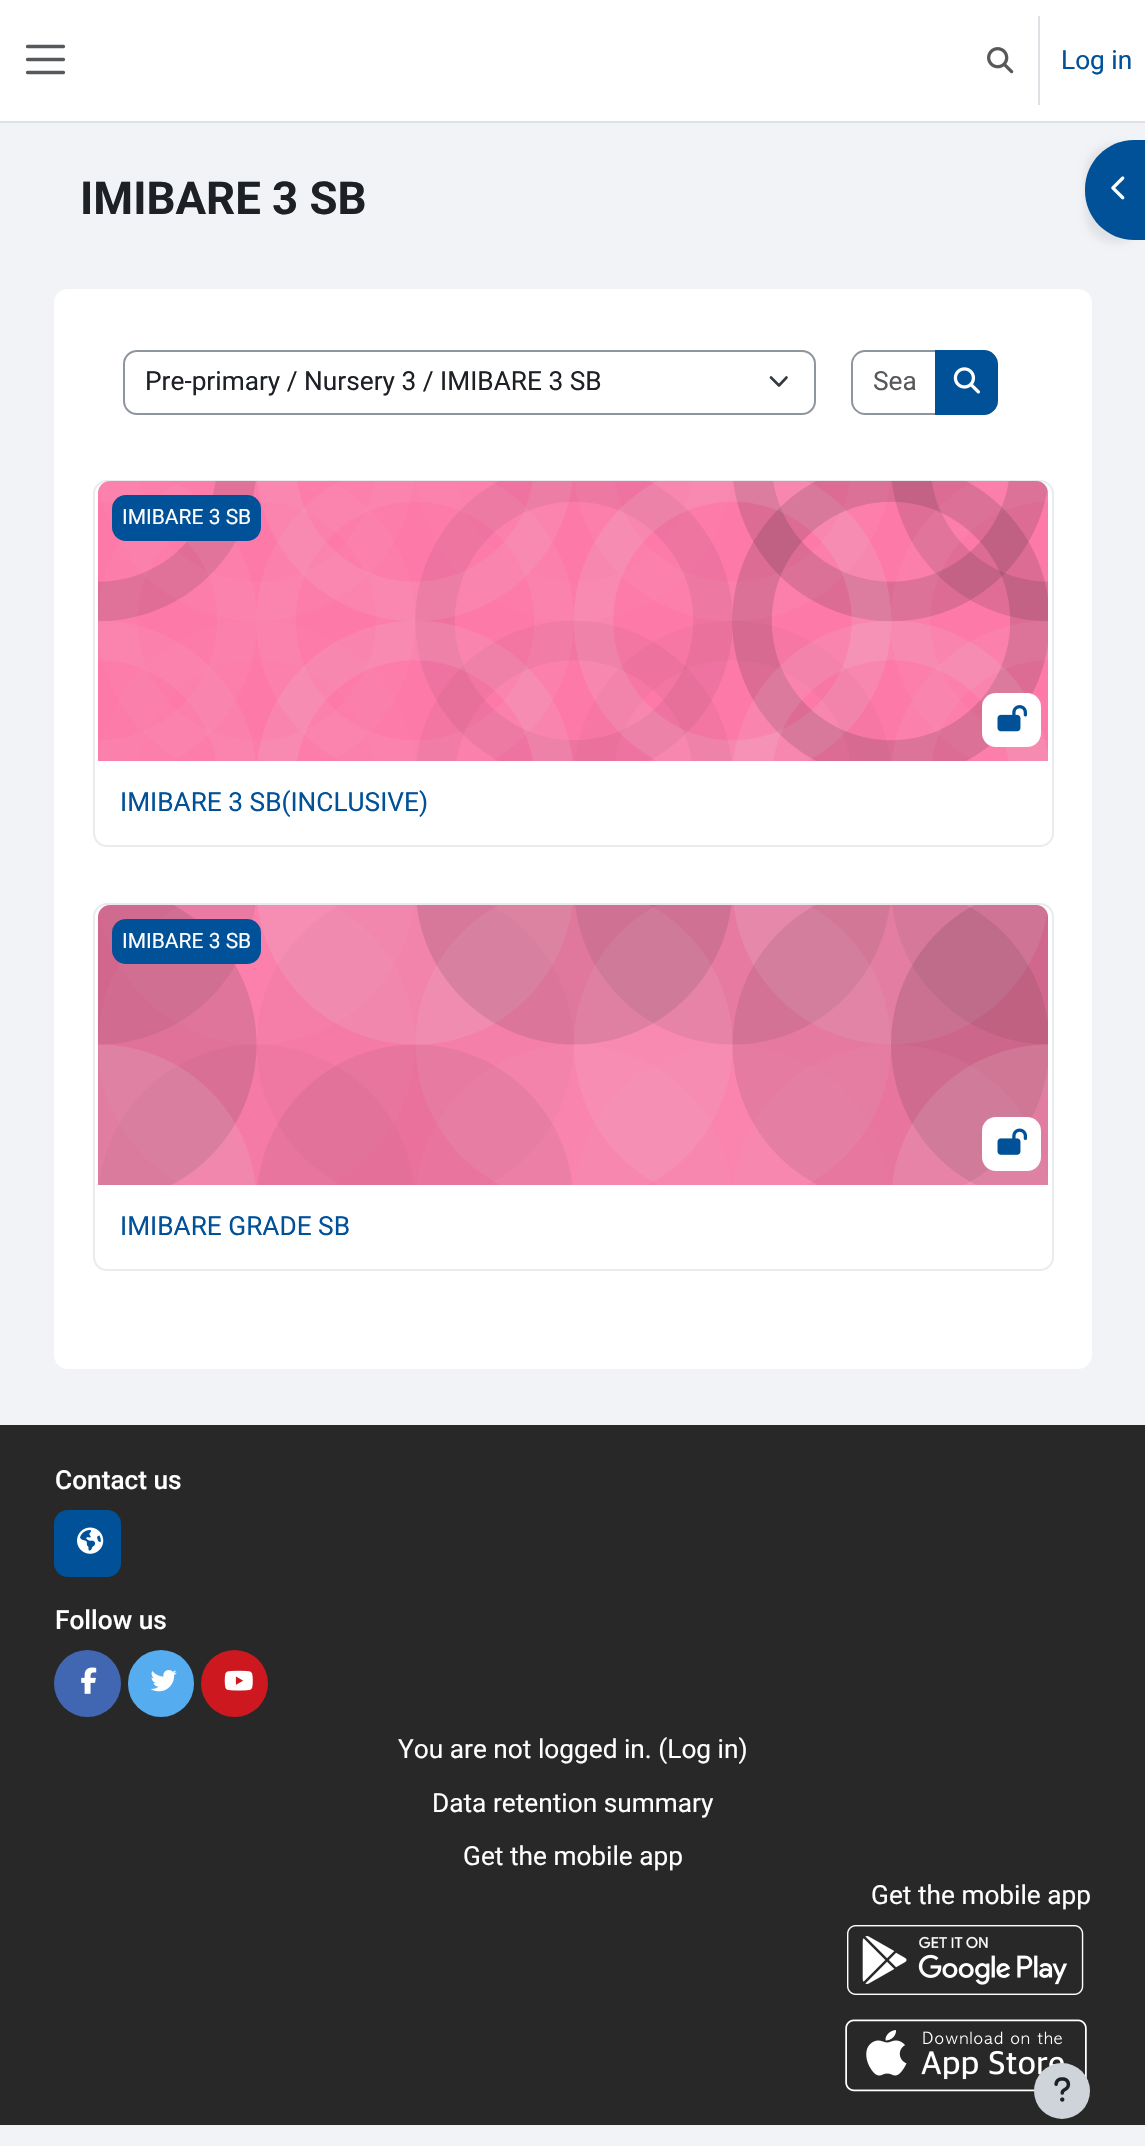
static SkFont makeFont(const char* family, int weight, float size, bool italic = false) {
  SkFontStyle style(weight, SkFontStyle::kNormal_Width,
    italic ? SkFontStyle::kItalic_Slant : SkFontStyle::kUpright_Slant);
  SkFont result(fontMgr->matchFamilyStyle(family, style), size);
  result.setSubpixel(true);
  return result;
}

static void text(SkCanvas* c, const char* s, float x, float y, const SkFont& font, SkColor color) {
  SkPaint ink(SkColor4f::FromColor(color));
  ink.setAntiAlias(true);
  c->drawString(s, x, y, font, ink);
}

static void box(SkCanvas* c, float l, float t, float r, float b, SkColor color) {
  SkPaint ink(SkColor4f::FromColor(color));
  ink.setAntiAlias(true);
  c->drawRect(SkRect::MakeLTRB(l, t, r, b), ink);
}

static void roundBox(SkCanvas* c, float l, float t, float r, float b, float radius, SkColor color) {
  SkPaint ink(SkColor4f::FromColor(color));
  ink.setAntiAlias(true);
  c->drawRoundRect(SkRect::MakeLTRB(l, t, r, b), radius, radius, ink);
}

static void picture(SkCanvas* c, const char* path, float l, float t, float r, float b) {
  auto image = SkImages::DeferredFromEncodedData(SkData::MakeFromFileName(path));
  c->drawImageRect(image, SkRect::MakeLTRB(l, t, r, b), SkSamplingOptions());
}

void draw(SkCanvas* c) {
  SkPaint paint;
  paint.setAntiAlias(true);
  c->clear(0xfff2f3f7);
  box(c, 0, 0, 1145, 121, 0xffffffff);
  box(c, 0, 121, 1145, 123, 0xffdee2e6);
  paint.setStyle(SkPaint::kStroke_Style);
  paint.setStrokeWidth(3.3f);
  paint.setStrokeCap(SkPaint::kRound_Cap);
  paint.setColor(0xff56595c);
  c->drawPath(SkPathBuilder().moveTo(27.5f, 46.5f).lineTo(63.5f, 46.5f).moveTo(27.5f, 59.5f).lineTo(63.5f, 59.5f).moveTo(27.5f, 72.5f).lineTo(63.5f, 72.5f).detach(), paint);
  picture(c, "img_01.png", 987, 47, 1014, 74);
  box(c, 1038, 16, 1040, 105, 0xffdee2e6);
  SkFont face1 = makeFont("Roboto", 400, 26.25f);
  text(c, "Log in", 1061, 69, face1, 0xff005198);
  SkFont face2 = makeFont("Roboto", 700, 45.5f);
  text(c, "IMIBARE 3 SB", 80, 214, face2, 0xff1d2125);
  roundBox(c, 54, 289, 1092, 1369, 14, 0xffffffff);
  paint.setStyle(SkPaint::kFill_Style);
  paint.setColor(0x12000000);
  paint.setMaskFilter(SkMaskFilter::MakeBlur(kNormal_SkBlurStyle, 3.5f));
  c->drawRoundRect(SkRect::MakeLTRB(1085, 144, 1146, 243), 49, 49, paint);
  paint.setMaskFilter(nullptr);
  paint.setColor(0xff005198);
  c->drawPath(SkPathBuilder().moveTo(1134, 140).lineTo(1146, 140).lineTo(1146, 240).lineTo(1134, 240).cubicTo(1107, 240, 1085, 218, 1085, 191).lineTo(1085, 189).cubicTo(1085, 162, 1107, 140, 1134, 140).close().detach(), paint);
  picture(c, "img_02.png", 1111, 176, 1125, 200);
  paint.setStyle(SkPaint::kStroke_Style);
  paint.setStrokeWidth(2.6f);
  paint.setStrokeJoin(SkPaint::kRound_Join);
  paint.setColor(0xff343a40);
  c->drawPath(SkPathBuilder().moveTo(771, 377.5f).lineTo(779, 385.5f).lineTo(786.5f, 377.5f).detach(), paint);
  paint.setStrokeWidth(2);
  paint.setStrokeCap(SkPaint::kButt_Cap);
  paint.setStrokeJoin(SkPaint::kMiter_Join);
  paint.setColor(0xff8f959e);
  c->drawRoundRect(SkRect::MakeLTRB(124, 351, 815, 414), 13, 13, paint);
  text(c, "Pre-primary / Nursery 3 / IMIBARE 3 SB", 145, 390, face1, 0xff1d2125);
  c->drawPath(SkPathBuilder().moveTo(865, 351).lineTo(937, 351).lineTo(937, 414).lineTo(865, 414).cubicTo(858, 414, 852, 408, 852, 401).lineTo(852, 364).cubicTo(852, 357, 858, 351, 865, 351).close().detach(), paint);
  text(c, "Sea", 873, 390, face1, 0xff56595c);
  paint.setStyle(SkPaint::kFill_Style);
  paint.setColor(0xff005198);
  c->drawPath(SkPathBuilder().moveTo(936, 351).lineTo(984, 351).cubicTo(991, 351, 997, 357, 997, 364).lineTo(997, 401).cubicTo(997, 408, 991, 414, 984, 414).lineTo(936, 414).close().detach(), paint);
  paint.setStyle(SkPaint::kStroke_Style);
  c->drawPath(SkPathBuilder().moveTo(936, 351).lineTo(984, 351).cubicTo(991, 351, 997, 357, 997, 364).lineTo(997, 401).cubicTo(997, 408, 991, 414, 984, 414).lineTo(936, 414).close().detach(), paint);
  picture(c, "img_03.png", 953, 367, 980, 394);
  paint.setColor(0xffe9ecef);
  c->drawRoundRect(SkRect::MakeLTRB(94, 481, 1053, 846), 13, 13, paint);
  picture(c, "img_04.png", 98, 481, 1048, 761);
  roundBox(c, 112, 495, 261, 541, 14, 0xff005198);
  SkFont face3 = makeFont("Roboto", 400, 21);
  text(c, "IMIBARE 3 SB", 122, 524, face3, 0xffffffff);
  roundBox(c, 982, 693, 1041, 747, 14, 0xffffffff);
  picture(c, "img_05.png", 997, 705, 1028, 732);
  text(c, "IMIBARE 3 SB(INCLUSIVE)", 120, 811, face1, 0xff005198);
  c->drawRoundRect(SkRect::MakeLTRB(94, 904, 1053, 1270), 13, 13, paint);
  picture(c, "img_06.png", 98, 905, 1048, 1185);
  roundBox(c, 112, 919, 261, 964, 14, 0xff005198);
  text(c, "IMIBARE 3 SB", 122, 948, face3, 0xffffffff);
  roundBox(c, 982, 1117, 1041, 1171, 14, 0xffffffff);
  picture(c, "img_07.png", 997, 1128, 1028, 1155);
  text(c, "IMIBARE GRADE SB", 120, 1235, face1, 0xff005198);
  box(c, 0, 1425, 1145, 2125, 0xff282829);
  SkFont face4 = makeFont("Roboto", 500, 26.25f);
  text(c, "Contact us", 55, 1489, face4, 0xffffffff);
  roundBox(c, 54, 1510, 121, 1577, 14, 0xff005198);
  picture(c, "img_08.png", 77, 1527, 104, 1554);
  text(c, "Follow us", 55, 1629, face4, 0xffffffff);
  paint.setStyle(SkPaint::kFill_Style);
  paint.setColor(0xff4167b2);
  c->drawCircle(87.5f, 1683.5f, 33.5f, paint);
  picture(c, "img_09.png", 81, 1667, 97, 1694);
  roundBox(c, 128, 1650, 194, 1717, 33, 0xff55acee);
  picture(c, "img_10.png", 150, 1670, 177, 1692);
  paint.setColor(0xffcc181e);
  c->drawCircle(234.5f, 1683.5f, 33.5f, paint);
  picture(c, "img_11.png", 224, 1670, 253, 1691);
  text(c, "You are not logged in. (Log in)", 398, 1758, face1, 0xffffffff);
  text(c, "Data retention summary", 432, 1812, face1, 0xffffffff);
  text(c, "Get the mobile app", 463, 1865, face1, 0xffffffff);
  text(c, "Get the mobile app", 871, 1904, face1, 0xffffffff);
  picture(c, "img_12.png", 847, 1925, 1084, 1995);
  picture(c, "img_13.png", 845, 2019, 1087, 2092);
  paint.setColor(0xffced4da);
  c->drawCircle(1062, 2091, 28, paint);
  picture(c, "img_14.png", 1054, 2077, 1071, 2102);
}
